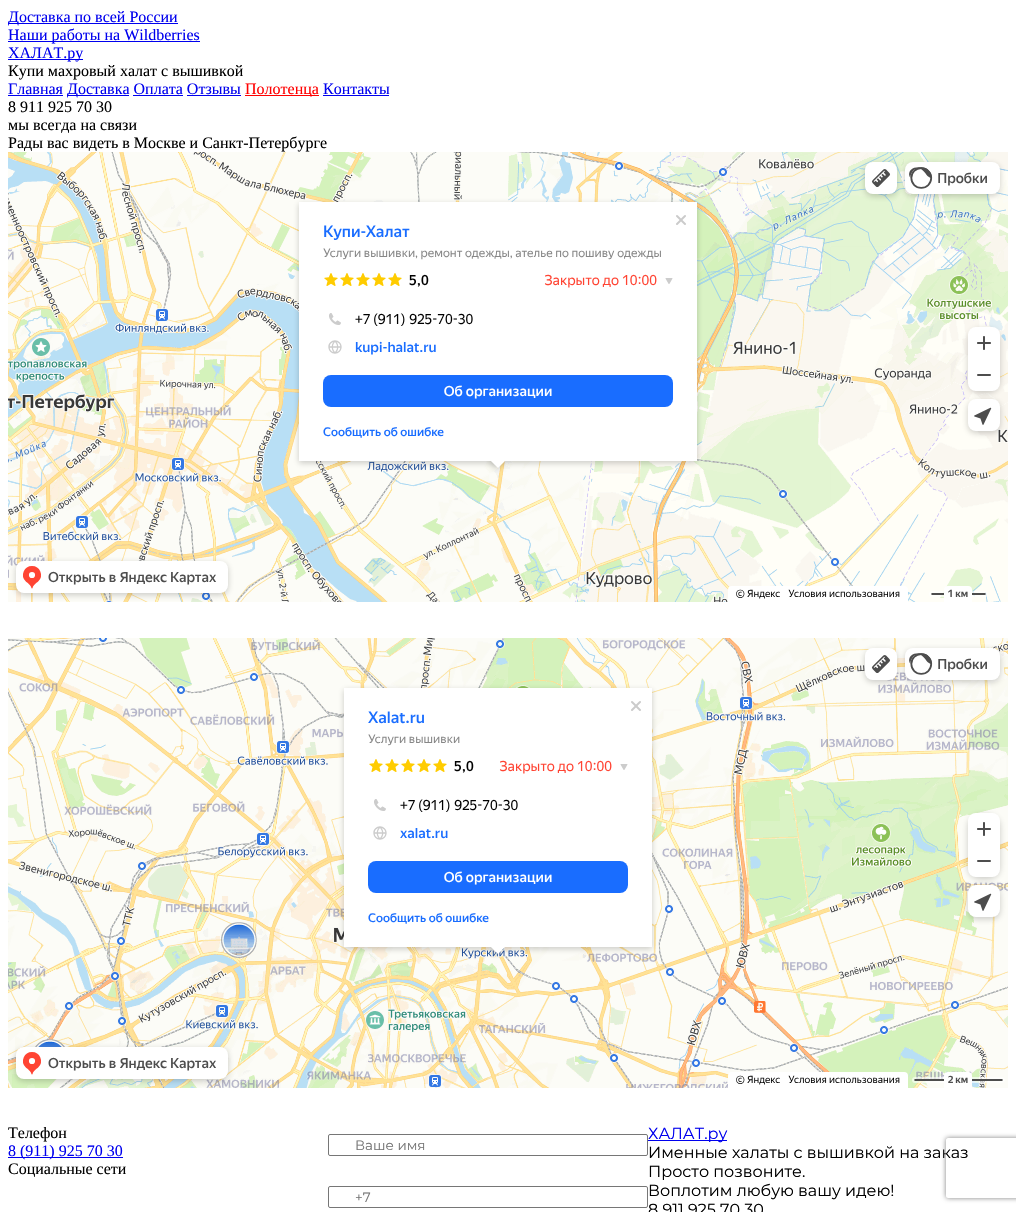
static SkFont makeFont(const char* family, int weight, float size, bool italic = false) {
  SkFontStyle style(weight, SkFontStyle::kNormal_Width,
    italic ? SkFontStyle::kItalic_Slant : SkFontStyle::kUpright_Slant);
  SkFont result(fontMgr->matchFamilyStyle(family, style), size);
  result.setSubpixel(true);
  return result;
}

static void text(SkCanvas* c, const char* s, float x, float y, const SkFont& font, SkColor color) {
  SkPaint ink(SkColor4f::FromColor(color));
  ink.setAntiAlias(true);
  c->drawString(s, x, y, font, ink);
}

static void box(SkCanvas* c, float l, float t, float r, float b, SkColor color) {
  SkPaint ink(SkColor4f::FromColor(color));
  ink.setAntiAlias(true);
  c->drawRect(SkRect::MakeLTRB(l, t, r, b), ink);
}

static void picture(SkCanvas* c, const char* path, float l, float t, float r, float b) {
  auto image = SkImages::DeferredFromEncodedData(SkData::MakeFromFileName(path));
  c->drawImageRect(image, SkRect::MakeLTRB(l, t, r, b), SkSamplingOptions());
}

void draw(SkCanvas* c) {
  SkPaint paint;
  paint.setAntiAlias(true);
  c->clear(0xffffffff);
  box(c, 8, 23, 178, 24, 0xff0000ee);
  SkFont face1 = makeFont("Liberation Serif", 400, 16);
  text(c, "Доставка по всей России", 8, 22, face1, 0xff0000ee);
  box(c, 8, 41, 200, 42, 0xff0000ee);
  text(c, "Наши работы на Wildberries", 8, 40, face1, 0xff0000ee);
  box(c, 8, 59, 83, 60, 0xff0000ee);
  text(c, "ХАЛАТ.ру", 8, 58, face1, 0xff0000ee);
  text(c, "Купи махровый халат с вышивкой", 8, 76, face1, 0xff000000);
  text(c, "Главная", 8, 94, face1, 0xff0000ee);
  box(c, 8, 95, 63, 96, 0xff0000ee);
  box(c, 67, 95, 129, 96, 0xff0000ee);
  text(c, "Доставка Оплата Отзывы", 67, 94, face1, 0xff0000ee);
  box(c, 245, 95, 319, 96, 0xffff0000);
  text(c, "Полотенца", 245, 94, face1, 0xffff0000);
  text(c, "Контакты", 323, 94, face1, 0xff0000ee);
  box(c, 323, 95, 389, 96, 0xff0000ee);
  box(c, 133, 95, 183, 96, 0xff0000ee);
  box(c, 187, 95, 241, 96, 0xff0000ee);
  text(c, "8 911 925 70 30", 8, 112, face1, 0xff000000);
  text(c, "мы всегда на связи", 8, 130, face1, 0xff000000);
  text(c, "Рады вас видеть в Москве и Санкт-Петербурге", 8, 148, face1, 0xff000000);
  picture(c, "img_01.png", 8, 152, 1008, 602);
  picture(c, "img_02.png", 8, 638, 1008, 1088);
  text(c, "Телефон", 8, 1138, face1, 0xff000000);
  box(c, 8, 1157, 123, 1158, 0xff0000ee);
  text(c, "8 (911) 925 70 30", 8, 1156, face1, 0xff0000ee);
  text(c, "Социальные сети", 8, 1174, face1, 0xff000000);
  paint.setStyle(SkPaint::kStroke_Style);
  paint.setStrokeWidth(1);
  paint.setColor(0xff767676);
  c->drawRoundRect(SkRect::MakeLTRB(328.5f, 1134.5f, 647.5f, 1155.5f), 1.5f, 1.5f, paint);
  SkFont face2 = makeFont("Montserrat", 400, 13.5f);
  text(c, "Ваше имя", 355, 1150, face2, 0xff757575);
  c->drawRoundRect(SkRect::MakeLTRB(328.5f, 1186.5f, 647.5f, 1207.5f), 1.5f, 1.5f, paint);
  text(c, "+7", 355, 1202, face2, 0xff757575);
  box(c, 648, 1140, 727, 1141, 0xff0000ee);
  SkFont face3 = makeFont("Montserrat", 400, 16);
  text(c, "ХАЛАТ.ру", 648, 1139, face3, 0xff0000ee);
  text(c, "Именные халаты с вышивкой на заказ", 648, 1158, face3, 0xff000000);
  text(c, "Просто позвоните.", 648, 1177, face3, 0xff000000);
  text(c, "Воплотим любую вашу идею!", 648, 1196, face3, 0xff000000);
  text(c, "8 911 925 70 30", 648, 1215, face3, 0xff000000);
  c->save();
  c->clipPath(SkPathBuilder(SkPathFillType::kEvenOdd).moveTo(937, 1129).lineTo(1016, 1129).lineTo(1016, 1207).lineTo(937, 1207).close().moveTo(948, 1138).lineTo(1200, 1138).cubicTo(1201, 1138, 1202, 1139, 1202, 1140).lineTo(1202, 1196).cubicTo(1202, 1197, 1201, 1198, 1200, 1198).lineTo(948, 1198).cubicTo(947, 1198, 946, 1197, 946, 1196).lineTo(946, 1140).cubicTo(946, 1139, 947, 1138, 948, 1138).close().detach(), true);
  paint.setStyle(SkPaint::kFill_Style);
  paint.setColor(0xff808080);
  paint.setMaskFilter(SkMaskFilter::MakeBlur(kNormal_SkBlurStyle, 2.5f));
  c->drawRoundRect(SkRect::MakeLTRB(946, 1138, 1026, 1198), 2, 2, paint);
  paint.setMaskFilter(nullptr);
  c->restore();
}
